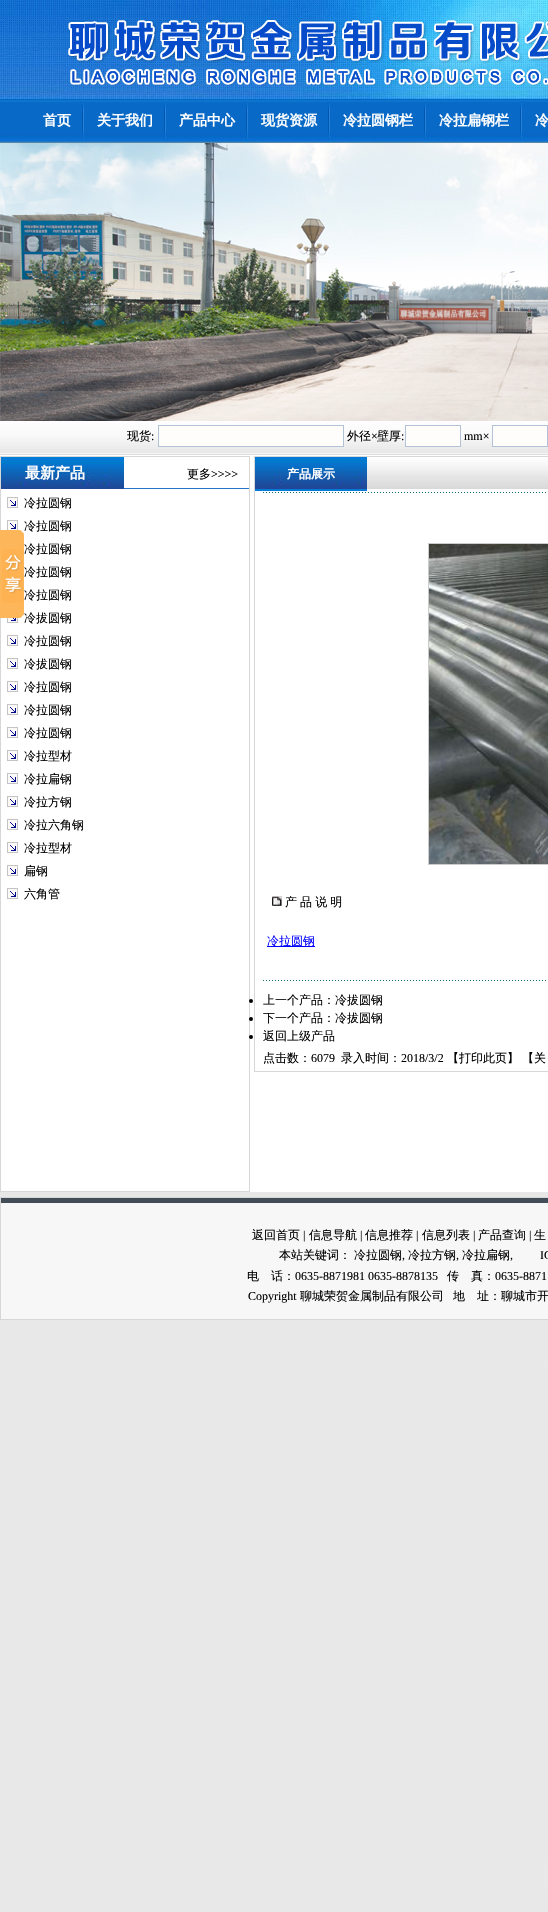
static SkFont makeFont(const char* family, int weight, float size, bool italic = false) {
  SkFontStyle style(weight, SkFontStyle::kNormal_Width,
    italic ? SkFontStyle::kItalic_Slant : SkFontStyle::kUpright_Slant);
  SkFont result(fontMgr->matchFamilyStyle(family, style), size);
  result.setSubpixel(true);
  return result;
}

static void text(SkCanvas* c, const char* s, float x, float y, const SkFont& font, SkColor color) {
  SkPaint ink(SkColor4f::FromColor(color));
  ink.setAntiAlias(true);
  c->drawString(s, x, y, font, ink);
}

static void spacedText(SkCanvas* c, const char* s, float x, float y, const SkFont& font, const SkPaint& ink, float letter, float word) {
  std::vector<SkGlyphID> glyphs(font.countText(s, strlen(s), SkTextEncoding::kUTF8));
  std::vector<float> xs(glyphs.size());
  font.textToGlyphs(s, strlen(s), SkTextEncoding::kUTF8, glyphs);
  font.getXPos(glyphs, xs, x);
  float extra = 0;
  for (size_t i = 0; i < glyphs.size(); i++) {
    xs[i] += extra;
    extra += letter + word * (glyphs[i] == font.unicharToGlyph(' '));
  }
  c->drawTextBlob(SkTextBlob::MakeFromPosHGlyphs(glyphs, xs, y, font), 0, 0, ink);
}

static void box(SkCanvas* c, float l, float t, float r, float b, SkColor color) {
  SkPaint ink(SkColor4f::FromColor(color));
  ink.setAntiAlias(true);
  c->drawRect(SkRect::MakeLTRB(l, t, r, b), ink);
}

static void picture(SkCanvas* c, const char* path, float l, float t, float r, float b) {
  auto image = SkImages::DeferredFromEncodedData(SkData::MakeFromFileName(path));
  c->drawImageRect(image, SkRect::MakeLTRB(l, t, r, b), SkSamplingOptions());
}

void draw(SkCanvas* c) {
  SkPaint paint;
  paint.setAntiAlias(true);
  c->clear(0xffffffff);
  picture(c, "img_01.png", 0, 100, 548, 1912);
  picture(c, "img_02.png", 0, 0, 548, 100);
  picture(c, "img_03.png", 82, 100, 84, 142);
  SkFont face1 = makeFont("WenQuanYi Zen Hei", 700, 14);
  text(c, "首页", 43, 125, face1, 0xffffffff);
  picture(c, "img_03.png", 164, 100, 166, 142);
  text(c, "关于我们", 97, 125, face1, 0xffffffff);
  picture(c, "img_03.png", 246, 100, 248, 142);
  text(c, "产品中心", 179, 125, face1, 0xffffffff);
  picture(c, "img_03.png", 328, 100, 330, 142);
  text(c, "现货资源", 261, 125, face1, 0xffffffff);
  picture(c, "img_03.png", 424, 100, 426, 142);
  text(c, "冷拉圆钢栏", 343, 125, face1, 0xffffffff);
  picture(c, "img_03.png", 520, 100, 522, 142);
  text(c, "冷拉扁钢栏", 439, 125, face1, 0xffffffff);
  text(c, "冷", 535, 125, face1, 0xffffffff);
  picture(c, "img_04.png", 0, 143, 548, 421);
  box(c, 0, 391, 548, 421, 0x1affffff);
  picture(c, "img_05.png", 0, 421, 548, 456);
  SkFont face2 = makeFont("WenQuanYi Zen Hei", 500, 12);
  text(c, "现货", 127, 440, face2, 0xff000000);
  SkFont face3 = makeFont("Liberation Serif", 400, 12);
  text(c, ":", 151, 440, face3, 0xff000000);
  paint.setColor(0xfffffdfb);
  c->drawRect(SkRect::MakeLTRB(158.5f, 425.5f, 343.5f, 446.5f), paint);
  paint.setStyle(SkPaint::kStroke_Style);
  paint.setStrokeWidth(1);
  paint.setColor(0xffb2c2d7);
  c->drawRect(SkRect::MakeLTRB(158.5f, 425.5f, 343.5f, 446.5f), paint);
  text(c, "外径", 347, 440, face2, 0xff000000);
  text(c, "×", 371, 440, face3, 0xff000000);
  text(c, "壁厚", 377, 440, face2, 0xff000000);
  text(c, ":", 401, 440, face3, 0xff000000);
  paint.setStyle(SkPaint::kFill_Style);
  paint.setColor(0xfffffdfb);
  c->drawRect(SkRect::MakeLTRB(405.5f, 425.5f, 460.5f, 446.5f), paint);
  paint.setStyle(SkPaint::kStroke_Style);
  paint.setColor(0xffb2c2d7);
  c->drawRect(SkRect::MakeLTRB(405.5f, 425.5f, 460.5f, 446.5f), paint);
  text(c, "mm×", 464, 440, face3, 0xff000000);
  paint.setStyle(SkPaint::kFill_Style);
  paint.setColor(0xfffffdfb);
  c->drawRect(SkRect::MakeLTRB(492.5f, 425.5f, 547.5f, 446.5f), paint);
  paint.setStyle(SkPaint::kStroke_Style);
  paint.setColor(0xffb2c2d7);
  c->drawRect(SkRect::MakeLTRB(492.5f, 425.5f, 547.5f, 446.5f), paint);
  box(c, 1, 456, 548, 1192, 0xffffffff);
  paint.setColor(0xffd7d7d7);
  c->drawRect(SkRect::MakeLTRB(0.5f, 456.5f, 249.5f, 1191.5f), paint);
  picture(c, "img_06.png", 0, 530, 24, 618);
  picture(c, "img_07.png", 1, 457, 249, 489);
  SkFont face4 = makeFont("WenQuanYi Zen Hei", 700, 15);
  text(c, "最新产品", 25, 478, face4, 0xffffffff);
  text(c, "更多", 187, 478, face2, 0xff000000);
  text(c, ">>>>", 211, 478, face3, 0xff000000);
  picture(c, "img_08.png", 7, 497, 18, 508);
  text(c, "冷拉圆钢", 24, 507, face2, 0xff000000);
  picture(c, "img_09.png", 7, 520, 18, 530);
  text(c, "冷拉圆钢", 24, 530, face2, 0xff000000);
  text(c, "冷拉圆钢", 24, 553, face2, 0xff000000);
  text(c, "冷拉圆钢", 24, 576, face2, 0xff000000);
  text(c, "冷拉圆钢", 24, 599, face2, 0xff000000);
  picture(c, "img_10.png", 7, 618, 18, 623);
  text(c, "冷拔圆钢", 24, 622, face2, 0xff000000);
  picture(c, "img_08.png", 7, 635, 18, 646);
  text(c, "冷拉圆钢", 24, 645, face2, 0xff000000);
  picture(c, "img_08.png", 7, 658, 18, 669);
  text(c, "冷拔圆钢", 24, 668, face2, 0xff000000);
  picture(c, "img_08.png", 7, 681, 18, 692);
  text(c, "冷拉圆钢", 24, 691, face2, 0xff000000);
  picture(c, "img_08.png", 7, 704, 18, 715);
  text(c, "冷拉圆钢", 24, 714, face2, 0xff000000);
  picture(c, "img_08.png", 7, 727, 18, 738);
  text(c, "冷拉圆钢", 24, 737, face2, 0xff000000);
  picture(c, "img_08.png", 7, 750, 18, 761);
  text(c, "冷拉型材", 24, 760, face2, 0xff000000);
  picture(c, "img_08.png", 7, 773, 18, 784);
  text(c, "冷拉扁钢", 24, 783, face2, 0xff000000);
  picture(c, "img_08.png", 7, 796, 18, 807);
  text(c, "冷拉方钢", 24, 806, face2, 0xff000000);
  picture(c, "img_08.png", 7, 819, 18, 830);
  text(c, "冷拉六角钢", 24, 829, face2, 0xff000000);
  picture(c, "img_08.png", 7, 842, 18, 853);
  text(c, "冷拉型材", 24, 852, face2, 0xff000000);
  picture(c, "img_08.png", 7, 865, 18, 876);
  text(c, "扁钢", 24, 875, face2, 0xff000000);
  picture(c, "img_08.png", 7, 888, 18, 899);
  text(c, "六角管", 24, 898, face2, 0xff000000);
  c->drawRect(SkRect::MakeLTRB(254.5f, 456.5f, 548.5f, 1071.5f), paint);
  picture(c, "img_11.png", 255, 457, 367, 491);
  SkFont face5 = makeFont("WenQuanYi Zen Hei", 700, 12);
  text(c, "产品展示", 287, 478, face5, 0xffffffff);
  picture(c, "img_12.png", 367, 457, 548, 491);
  picture(c, "img_13.png", 263, 492, 546, 493);
  paint.setColor(0xffcccccc);
  c->drawRect(SkRect::MakeLTRB(428.5f, 543.5f, 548.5f, 864.5f), paint);
  picture(c, "img_14.png", 429, 544, 548, 864);
  picture(c, "img_15.png", 272, 896, 282, 906);
  paint.setStyle(SkPaint::kFill_Style);
  paint.setColor(0xff000000);
  spacedText(c, "产 品 说 明", 285, 906, face2, paint, 0, -0.5f);
  box(c, 267, 946, 315, 947, 0xff0000ff);
  text(c, "冷拉圆钢", 267, 945, face2, 0xff0000ff);
  picture(c, "img_13.png", 263, 980, 546, 981);
  c->drawCircle(251, 1001, 2, paint);
  text(c, "上一个产品：冷拔圆钢", 263, 1004, face2, 0xff000000);
  c->drawCircle(251, 1019, 2, paint);
  text(c, "下一个产品：冷拔圆钢", 263, 1022, face2, 0xff000000);
  c->drawCircle(251, 1037, 2, paint);
  text(c, "返回上级产品", 263, 1040, face2, 0xff000000);
  text(c, "点击数：", 263, 1062, face2, 0xff000000);
  text(c, "6079", 311, 1062, face3, 0xff000000);
  text(c, "录入时间：", 341, 1062, face2, 0xff000000);
  text(c, "2018/3/2", 401, 1062, face3, 0xff000000);
  text(c, "【打印此页】", 447, 1062, face2, 0xff000000);
  text(c, "【关", 522, 1062, face2, 0xff000000);
  paint.setStyle(SkPaint::kStroke_Style);
  paint.setColor(0xffd7d7d7);
  c->drawRect(SkRect::MakeLTRB(0.5f, 1197.5f, 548.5f, 1319.5f), paint);
  picture(c, "img_16.png", 1, 1198, 548, 1319);
  text(c, "返回首页", 252, 1239, face2, 0xff000000);
  text(c, "|", 303, 1239, face3, 0xff000000);
  text(c, "信息导航", 309, 1239, face2, 0xff000000);
  text(c, "|", 360, 1239, face3, 0xff000000);
  text(c, "信息推荐", 365, 1239, face2, 0xff000000);
  text(c, "|", 416, 1239, face3, 0xff000000);
  text(c, "信息列表", 422, 1239, face2, 0xff000000);
  text(c, "|", 473, 1239, face3, 0xff000000);
  text(c, "产品查询", 478, 1239, face2, 0xff000000);
  text(c, "|", 529, 1239, face3, 0xff000000);
  text(c, "生", 534, 1239, face2, 0xff000000);
  text(c, "本站关键词：", 279, 1259, face2, 0xff000000);
  text(c, "冷拉圆钢", 354, 1259, face2, 0xff000000);
  text(c, ",", 402, 1259, face3, 0xff000000);
  text(c, "冷拉方钢", 408, 1259, face2, 0xff000000);
  text(c, ",", 456, 1259, face3, 0xff000000);
  text(c, "冷拉扁钢", 462, 1259, face2, 0xff000000);
  text(c, ",", 510, 1259, face3, 0xff000000);
  text(c, "IC", 540, 1259, face3, 0xff000000);
  text(c, "电　话：", 247, 1280, face2, 0xff000000);
  text(c, "0635-8871981 0635-8878135", 295, 1280, face3, 0xff000000);
  text(c, "传　真：", 447, 1280, face2, 0xff000000);
  text(c, "0635-8871", 495, 1280, face3, 0xff000000);
  text(c, "Copyright", 248, 1300, face3, 0xff000000);
  text(c, "聊城荣贺金属制品有限公司", 300, 1300, face2, 0xff000000);
  text(c, "地　址：聊城市开", 453, 1300, face2, 0xff000000);
}
